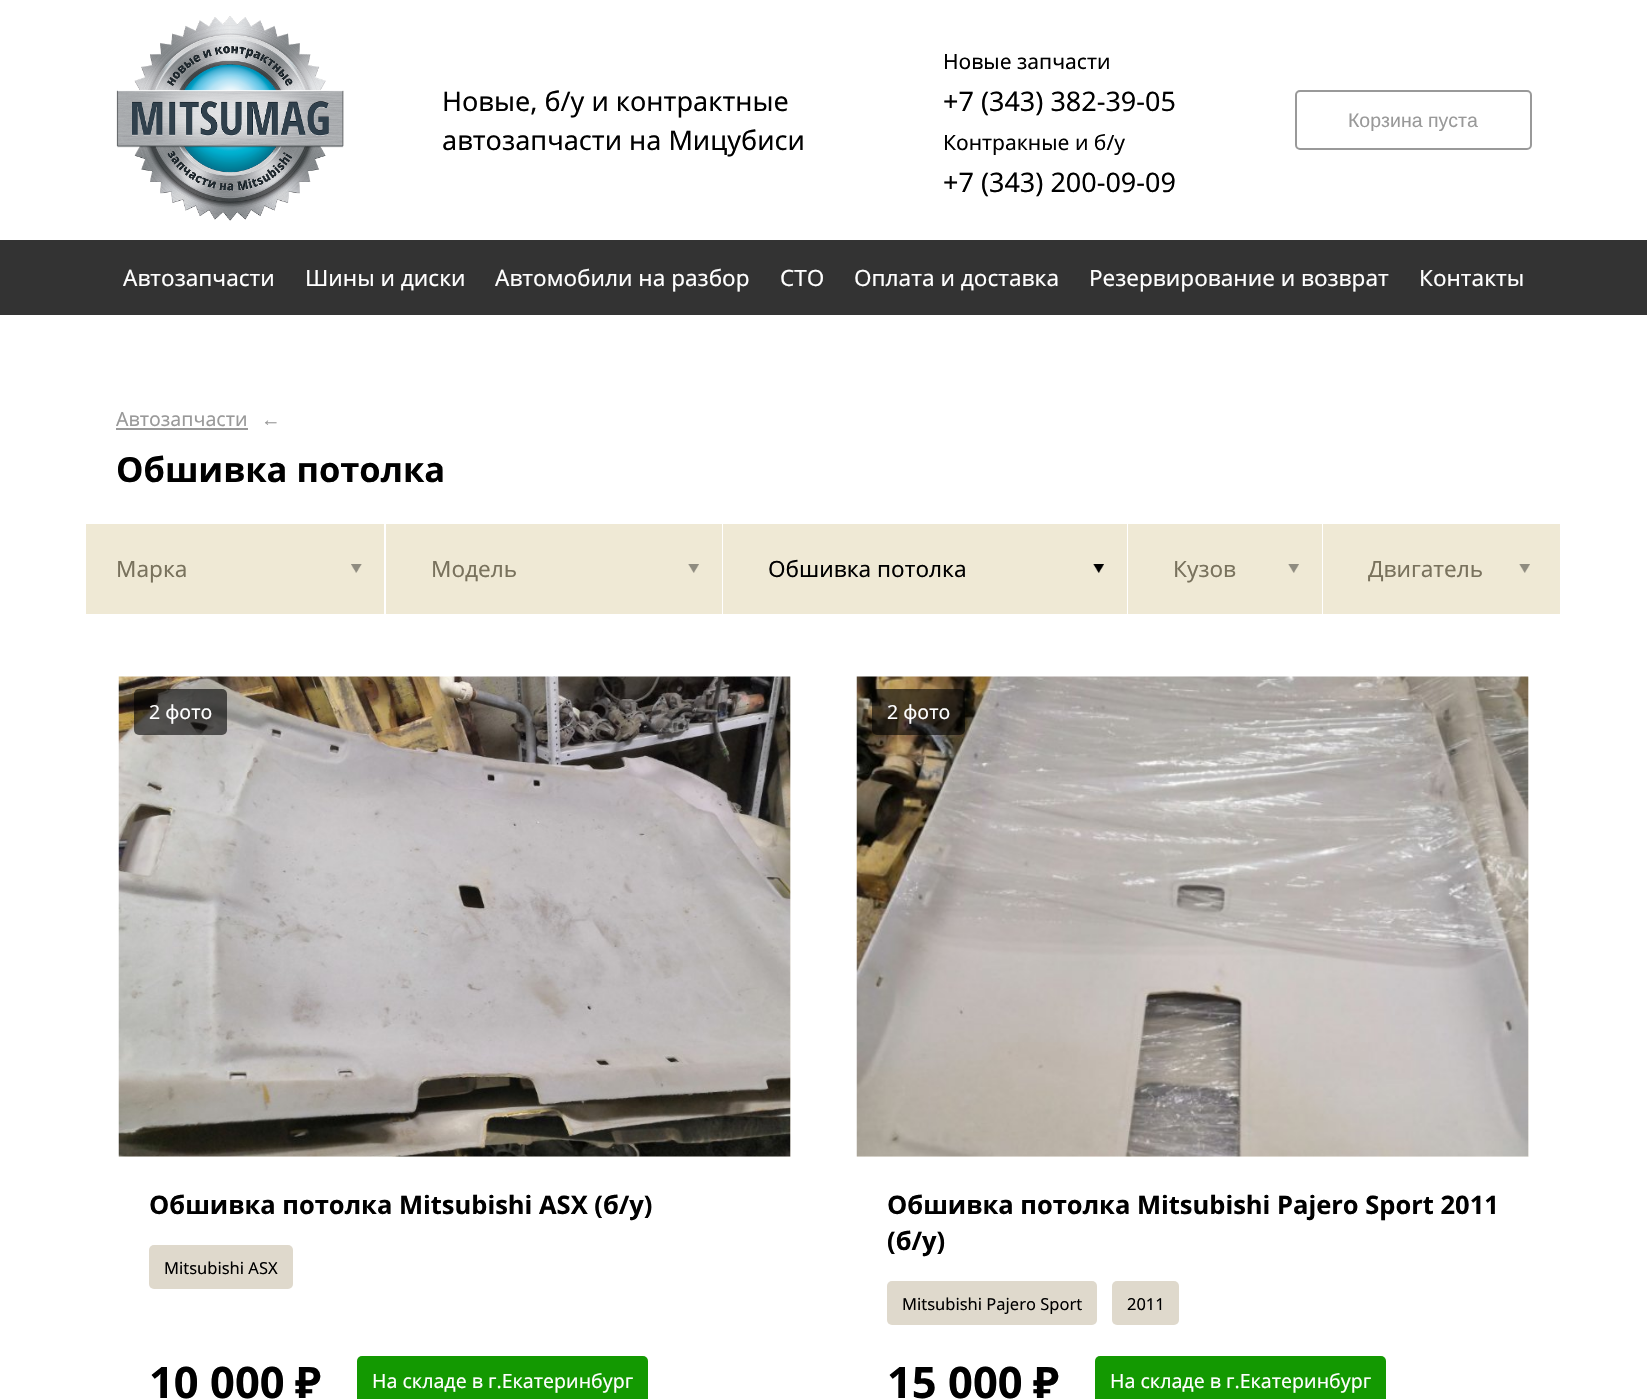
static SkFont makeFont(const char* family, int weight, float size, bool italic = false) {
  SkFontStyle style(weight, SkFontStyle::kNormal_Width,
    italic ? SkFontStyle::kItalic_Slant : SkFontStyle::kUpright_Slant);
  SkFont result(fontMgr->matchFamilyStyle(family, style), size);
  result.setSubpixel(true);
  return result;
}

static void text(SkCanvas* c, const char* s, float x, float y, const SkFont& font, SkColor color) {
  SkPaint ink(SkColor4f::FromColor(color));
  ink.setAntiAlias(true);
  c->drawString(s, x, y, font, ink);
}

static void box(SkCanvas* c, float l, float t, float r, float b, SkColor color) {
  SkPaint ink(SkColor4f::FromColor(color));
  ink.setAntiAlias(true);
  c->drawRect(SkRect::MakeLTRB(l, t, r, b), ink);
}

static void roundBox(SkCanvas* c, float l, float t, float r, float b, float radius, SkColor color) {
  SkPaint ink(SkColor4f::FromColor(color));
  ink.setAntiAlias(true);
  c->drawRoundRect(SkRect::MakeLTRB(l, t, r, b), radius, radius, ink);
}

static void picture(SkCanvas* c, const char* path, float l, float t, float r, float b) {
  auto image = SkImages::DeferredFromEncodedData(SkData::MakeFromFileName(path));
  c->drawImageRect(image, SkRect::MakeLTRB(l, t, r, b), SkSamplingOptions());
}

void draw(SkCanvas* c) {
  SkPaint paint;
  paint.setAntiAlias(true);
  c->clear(0xffffffff);
  picture(c, "img_01.png", 116, 16, 344, 221);
  SkFont face1 = makeFont("Noto Sans", 400, 27);
  text(c, "Новые, б/у и контрактные", 442, 111, face1, 0xff000000);
  text(c, "автозапчасти на Мицубиси", 442, 150, face1, 0xff000000);
  SkFont face2 = makeFont("Noto Sans", 400, 21);
  text(c, "Новые запчасти", 943, 69, face2, 0xff000000);
  text(c, "+7 (343) 382-39-05", 943, 111, face1, 0xff000000);
  text(c, "Контракные и б/у", 943, 150, face2, 0xff000000);
  text(c, "+7 (343) 200-09-09", 943, 192, face1, 0xff000000);
  paint.setStyle(SkPaint::kStroke_Style);
  paint.setStrokeWidth(2);
  paint.setColor(0xff999999);
  c->drawRoundRect(SkRect::MakeLTRB(1296, 91, 1531, 149), 4, 4, paint);
  SkFont face3 = makeFont("Liberation Sans", 400, 19.5f);
  text(c, "Корзина пуста", 1348, 127, face3, 0xff999999);
  box(c, 0, 240, 1647, 315, 0xff333333);
  SkFont face4 = makeFont("Noto Sans", 400, 22.5f);
  text(c, "Автозапчасти", 123, 286, face4, 0xffffffff);
  text(c, "Шины и диски", 305, 286, face4, 0xffffffff);
  text(c, "Автомобили на разбор", 495, 286, face4, 0xffffffff);
  text(c, "СТО", 780, 286, face4, 0xffffffff);
  text(c, "Оплата и доставка", 854, 286, face4, 0xffffffff);
  text(c, "Резервирование и возврат", 1089, 286, face4, 0xffffffff);
  text(c, "Контакты", 1419, 286, face4, 0xffffffff);
  SkFont face5 = makeFont("Noto Sans", 400, 19.5f);
  text(c, "Автозапчасти", 116, 426, face5, 0xff999999);
  box(c, 116, 428, 248, 430, 0xff999999);
  text(c, "←", 261, 426, face5, 0xff999999);
  SkFont face6 = makeFont("Noto Sans", 700, 34.5f);
  text(c, "Обшивка потолка", 116, 482, face6, 0xff000000);
  box(c, 86, 524, 384, 614, 0xffefe9d5);
  text(c, "Марка", 116, 577, face4, 0xff79725d);
  picture(c, "img_02.png", 351, 564, 362, 573);
  box(c, 386, 524, 722, 614, 0xffefe9d5);
  text(c, "Модель", 431, 577, face4, 0xff79725d);
  picture(c, "img_03.png", 688, 564, 699, 573);
  box(c, 723, 524, 1127, 614, 0xffefe9d5);
  text(c, "Обшивка потолка", 768, 577, face4, 0xff000000);
  picture(c, "img_04.png", 1093, 564, 1104, 573);
  box(c, 1128, 524, 1322, 614, 0xffefe9d5);
  text(c, "Кузов", 1173, 577, face4, 0xff79725d);
  paint.setStyle(SkPaint::kFill_Style);
  {
    const SkColor colors[] = {0x00efe9d5, 0xffefe9d5};
    const float stops[] = {0, 1};
    const SkPoint ends[] = {{1233, 569}, {1286, 569}};
    paint.setShader(SkGradientShader::MakeLinear(ends, colors, stops, 2, SkTileMode::kClamp));
    paint.setAlpha(255);
  }
  c->drawRect(SkRect::MakeLTRB(1234, 567, 1235, 575), paint);
  picture(c, "img_05.png", 1288, 564, 1299, 573);
  box(c, 1323, 524, 1560, 614, 0xffefe9d5);
  text(c, "Двигатель", 1368, 577, face4, 0xff79725d);
  {
    const SkColor colors[] = {0x00efe9d5, 0xffefe9d5};
    const float stops[] = {0, 1};
    const SkPoint ends[] = {{1479, 569}, {1532, 569}};
    paint.setShader(SkGradientShader::MakeLinear(ends, colors, stops, 2, SkTileMode::kClamp));
    paint.setAlpha(255);
  }
  c->drawRect(SkRect::MakeLTRB(1480, 571, 1482, 576), paint);
  picture(c, "img_06.png", 1519, 564, 1530, 573);
  box(c, 119, 677, 791, 1157, 0xfff8f6f1);
  picture(c, "img_07.png", 118, 676, 791, 1157);
  roundBox(c, 134, 689, 227, 735, 5, 0x99000000);
  text(c, "2 фото", 149, 719, face5, 0xffffffff);
  SkFont face7 = makeFont("Noto Sans", 700, 25.5f);
  text(c, "Обшивка потолка Mitsubishi ASX (б/у)", 149, 1214, face7, 0xff000000);
  roundBox(c, 149, 1245, 293, 1289, 5, 0xffdfd9cc);
  SkFont face8 = makeFont("Noto Sans", 400, 16.5f);
  text(c, "Mitsubishi ASX", 164, 1274, face8, 0xff000000);
  SkFont face9 = makeFont("Noto Sans", 700, 43.5f);
  text(c, "10 000", 149, 1398, face9, 0xff000000);
  SkFont face10 = makeFont("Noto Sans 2", 700, 43.5f);
  text(c, "₽", 295, 1398, face10, 0xff000000);
  roundBox(c, 357, 1356, 648, 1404, 5, 0xff139901);
  text(c, "На складе в г.Екатеринбург", 372, 1388, face5, 0xffffffff);
  box(c, 857, 677, 1529, 1157, 0xfff8f6f1);
  picture(c, "img_08.png", 856, 676, 1529, 1157);
  roundBox(c, 872, 689, 965, 735, 5, 0x99000000);
  text(c, "2 фото", 887, 719, face5, 0xffffffff);
  text(c, "Обшивка потолка Mitsubishi Pajero Sport 2011", 887, 1214, face7, 0xff000000);
  text(c, "(б/у)", 887, 1250, face7, 0xff000000);
  roundBox(c, 887, 1281, 1097, 1325, 5, 0xffdfd9cc);
  text(c, "Mitsubishi Pajero Sport", 902, 1310, face8, 0xff000000);
  roundBox(c, 1112, 1281, 1179, 1325, 5, 0xffdfd9cc);
  text(c, "2011", 1127, 1310, face8, 0xff000000);
  text(c, "15 000", 887, 1398, face9, 0xff000000);
  text(c, "₽", 1033, 1398, face10, 0xff000000);
  roundBox(c, 1095, 1356, 1386, 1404, 5, 0xff139901);
  text(c, "На складе в г.Екатеринбург", 1110, 1388, face5, 0xffffffff);
}
